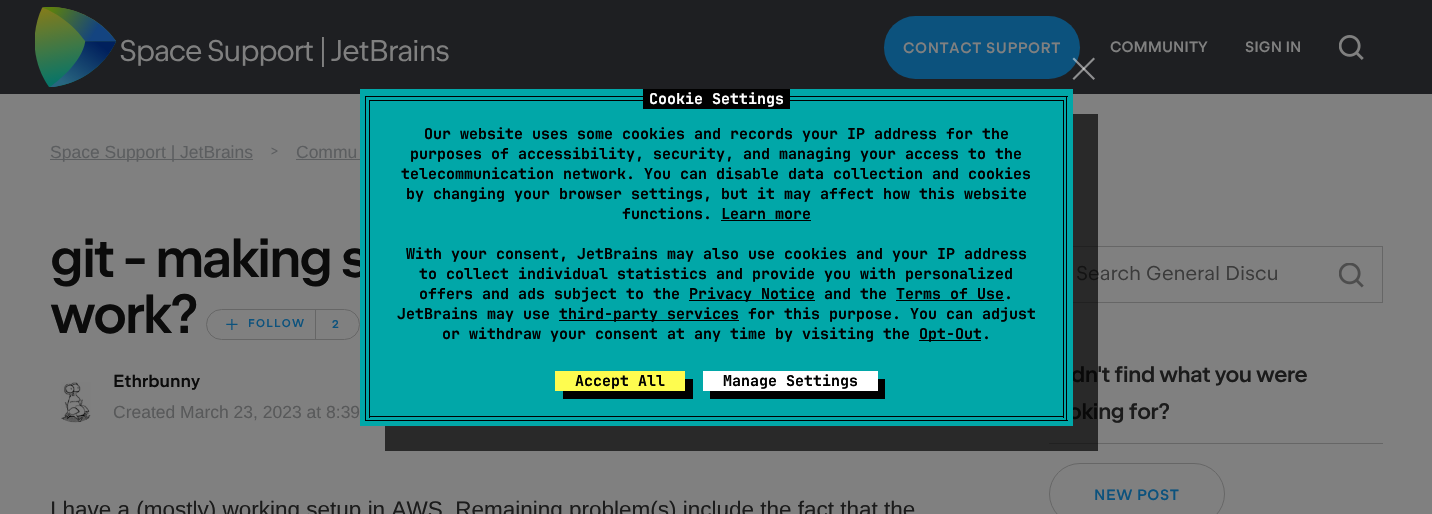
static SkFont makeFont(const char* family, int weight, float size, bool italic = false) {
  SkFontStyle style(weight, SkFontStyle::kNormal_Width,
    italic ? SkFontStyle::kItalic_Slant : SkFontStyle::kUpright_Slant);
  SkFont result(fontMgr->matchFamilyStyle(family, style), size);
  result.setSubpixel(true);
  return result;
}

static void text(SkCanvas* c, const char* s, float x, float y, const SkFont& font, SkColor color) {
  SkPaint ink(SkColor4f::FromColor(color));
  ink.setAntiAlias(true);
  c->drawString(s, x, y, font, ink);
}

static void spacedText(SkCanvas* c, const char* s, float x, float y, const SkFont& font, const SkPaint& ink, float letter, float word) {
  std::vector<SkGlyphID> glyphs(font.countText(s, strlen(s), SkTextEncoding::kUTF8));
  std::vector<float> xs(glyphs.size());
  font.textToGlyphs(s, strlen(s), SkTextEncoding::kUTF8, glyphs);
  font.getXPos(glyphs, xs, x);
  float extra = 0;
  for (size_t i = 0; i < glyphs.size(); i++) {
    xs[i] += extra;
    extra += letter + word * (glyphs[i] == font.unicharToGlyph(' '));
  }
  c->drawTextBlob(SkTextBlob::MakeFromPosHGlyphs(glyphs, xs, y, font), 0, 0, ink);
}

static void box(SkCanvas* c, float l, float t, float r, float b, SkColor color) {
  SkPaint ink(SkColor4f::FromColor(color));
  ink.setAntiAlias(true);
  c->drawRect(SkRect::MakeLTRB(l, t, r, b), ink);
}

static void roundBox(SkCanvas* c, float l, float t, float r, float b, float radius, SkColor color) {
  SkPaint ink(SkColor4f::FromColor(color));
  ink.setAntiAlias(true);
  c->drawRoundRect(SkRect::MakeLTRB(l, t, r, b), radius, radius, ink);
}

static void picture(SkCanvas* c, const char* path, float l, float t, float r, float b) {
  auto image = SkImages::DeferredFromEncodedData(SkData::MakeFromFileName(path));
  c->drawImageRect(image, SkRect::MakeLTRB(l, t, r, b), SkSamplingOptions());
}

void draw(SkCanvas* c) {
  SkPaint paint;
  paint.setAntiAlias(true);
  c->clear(0xff808080);
  box(c, 0, 0, 1432, 94, 0xff1e1f22);
  picture(c, "img_01.png", 35, 7, 116, 87);
  SkFont face1 = makeFont("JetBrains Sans", 400, 30);
  paint.setColor(0xff808080);
  spacedText(c, "Space Support | JetBrains", 119, 61, face1, paint, -1.25f, -0.5f);
  roundBox(c, 884, 16, 1080, 79, 31.5f, 0xff0c527d);
  SkFont face2 = makeFont("JetBrains Sans", 600, 15);
  spacedText(c, "CONTACT SUPPORT", 903, 53, face2, paint, 0.6f, 0);
  text(c, "COMMUNITY", 1110, 52, face2, 0xff808080);
  text(c, "SIGN IN", 1245, 52, face2, 0xff808080);
  picture(c, "img_02.png", 1339, 35, 1364, 60);
  box(c, 50, 159, 253, 160, 0xff5c5e60);
  SkFont face3 = makeFont("Liberation Sans", 400, 17.5f);
  text(c, "Space Support | JetBrains", 50, 158, face3, 0xff5c5e60);
  SkFont face4 = makeFont("JetBrains Sans", 400, 17.5f);
  text(c, ">", 270, 156, face4, 0xff5c5e60);
  text(c, "Commu", 296, 158, face3, 0xff5c5e60);
  box(c, 296, 159, 360, 160, 0xff5c5e60);
  SkFont face5 = makeFont("JetBrains Sans", 600, 55);
  paint.setColor(0xff0b0b0b);
  spacedText(c, "git - making s", 50, 277, face5, paint, -2.5f, 0);
  spacedText(c, "work?", 50, 333, face5, paint, -2.5f, 0);
  paint.setStyle(SkPaint::kStroke_Style);
  paint.setStrokeWidth(1);
  paint.setColor(0xff666666);
  c->drawRoundRect(SkRect::MakeLTRB(206.5f, 309.5f, 359.5f, 339.5f), 15, 15, paint);
  picture(c, "img_03.png", 226, 319, 238, 330);
  SkFont face6 = makeFont("JetBrains Sans", 600, 11.25f);
  paint.setStyle(SkPaint::kFill_Style);
  paint.setColor(0xff0c527d);
  spacedText(c, "FOLLOW", 248, 327, face6, paint, 1.25f, 0);
  box(c, 315, 310, 316, 339, 0xff666666);
  spacedText(c, "2", 332, 328, face6, paint, 1.25f, 0);
  picture(c, "img_04.png", 61, 382, 91, 423);
  SkFont face7 = makeFont("JetBrains Sans", 600, 17.5f);
  text(c, "Ethrbunny", 113, 387, face7, 0xff0b0b0b);
  text(c, "Created March 23, 2023 at 8:39", 113, 418, face3, 0xff58595a);
  SkFont face8 = makeFont("Liberation Sans", 400, 22.5f);
  text(c, "I have a (mostly) working setup in AWS. Remaining problem(s) include the fact that the", 50, 517, face8, 0xff1b1b1b);
  paint.setStyle(SkPaint::kStroke_Style);
  paint.setColor(0xff666666);
  c->drawRect(SkRect::MakeLTRB(1049.5f, 246.5f, 1382.5f, 302.5f), paint);
  SkFont face9 = makeFont("JetBrains Sans", 400, 20);
  text(c, "Search General Discu", 1076, 280, face9, 0xff3b3b3b);
  picture(c, "img_05.png", 1339, 263, 1364, 288);
  box(c, 1049, 443, 1383, 444, 0xff666666);
  SkFont face10 = makeFont("JetBrains Sans", 600, 22.5f);
  paint.setStyle(SkPaint::kFill_Style);
  paint.setColor(0xff1b1b1b);
  spacedText(c, "dn't find what you were", 1071, 382, face10, paint, -0.6f, 0);
  spacedText(c, "oking for?", 1068, 419, face10, paint, -0.6f, 0);
  paint.setStyle(SkPaint::kStroke_Style);
  paint.setColor(0xff666666);
  c->drawRoundRect(SkRect::MakeLTRB(1049.5f, 463.5f, 1224.5f, 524.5f), 30.5f, 30.5f, paint);
  paint.setStyle(SkPaint::kFill_Style);
  paint.setColor(0xff0c527d);
  spacedText(c, "NEW POST", 1094, 500, face2, paint, 0.6f, 0);
  paint.setColor(0xad000000);
  c->drawPath(SkPathBuilder().moveTo(385, 426).lineTo(385, 451).lineTo(1098, 451).lineTo(1098, 114).lineTo(1072, 114).lineTo(1072, 426).close().detach(), paint);
  box(c, 360, 89, 1073, 426, 0xff01a7a8);
  paint.setColor(0xff8e8f90);
  c->drawPath(SkPathBuilder().moveTo(1072.5f, 78.5f).lineTo(1093.5f, 57.5f).lineTo(1095, 59).lineTo(1074, 80).close().detach(), paint);
  paint.setColor(0x80ffffff);
  c->drawPath(SkPathBuilder().moveTo(1074, 57.5f).lineTo(1095, 78.5f).lineTo(1093.5f, 80).lineTo(1072.5f, 59).close().detach(), paint);
  box(c, 369, 100, 1064, 101, 0xff000000);
  box(c, 1063, 100, 1064, 418, 0xff000000);
  box(c, 369, 100, 370, 371, 0xff000000);
  box(c, 365, 96, 1068, 97, 0xff000000);
  box(c, 643, 89, 790, 109, 0xff000000);
  SkFont face11 = makeFont("JetBrains Mono", 700, 15);
  text(c, "Cookie Settings", 649, 104, face11, 0xffffffff);
  box(c, 1066, 96, 1067, 421, 0xff000000);
  box(c, 365, 96, 366, 370, 0xff000000);
  text(c, "Our website uses some cookies and records your IP address for the", 424, 139, face11, 0xff000000);
  text(c, "purposes of accessibility, security, and managing your access to the", 410, 159, face11, 0xff000000);
  text(c, "telecommunication network. You can disable data collection and cookies", 401, 179, face11, 0xff000000);
  text(c, "by changing your browser settings, but it may affect how this website", 406, 199, face11, 0xff000000);
  text(c, "functions. Learn more", 622, 219, face11, 0xff000000);
  box(c, 721, 220, 811, 221, 0xff000000);
  text(c, "With your consent, JetBrains may also use cookies and your IP address", 406, 259, face11, 0xff000000);
  text(c, "to collect individual statistics and provide you with personalized", 419, 279, face11, 0xff000000);
  text(c, "offers and ads subject to the", 419, 299, face11, 0xff000000);
  box(c, 689, 300, 815, 301, 0xff000000);
  text(c, "Privacy Notice and the Terms of Use.", 689, 299, face11, 0xff000000);
  box(c, 896, 300, 1004, 301, 0xff000000);
  text(c, "JetBrains may use", 397, 319, face11, 0xff000000);
  box(c, 559, 320, 739, 321, 0xff000000);
  text(c, "third-party services for this purpose. You can adjust", 559, 319, face11, 0xff000000);
  text(c, "or withdraw your consent at any time by visiting the", 442, 339, face11, 0xff000000);
  box(c, 919, 340, 981, 341, 0xff000000);
  text(c, "Opt-Out.", 919, 339, face11, 0xff000000);
  box(c, 369, 416, 1064, 417, 0xff000000);
  box(c, 369, 371, 370, 418, 0xff000000);
  box(c, 365, 420, 1068, 421, 0xff000000);
  box(c, 365, 370, 366, 421, 0xff000000);
  paint.setColor(0xff000000);
  c->drawPath(SkPathBuilder().moveTo(563, 391).lineTo(563, 399).lineTo(693, 399).lineTo(693, 379).lineTo(685, 379).lineTo(685, 391).close().detach(), paint);
  box(c, 555, 371, 685, 391, 0xfffefc4f);
  text(c, "Accept All", 575, 386, face11, 0xff000000);
  c->drawPath(SkPathBuilder().moveTo(710, 391).lineTo(710, 399).lineTo(885, 399).lineTo(885, 379).lineTo(878, 379).lineTo(878, 391).close().detach(), paint);
  box(c, 703, 371, 878, 391, 0xffffffff);
  text(c, "Manage Settings", 723, 386, face11, 0xff000000);
}
